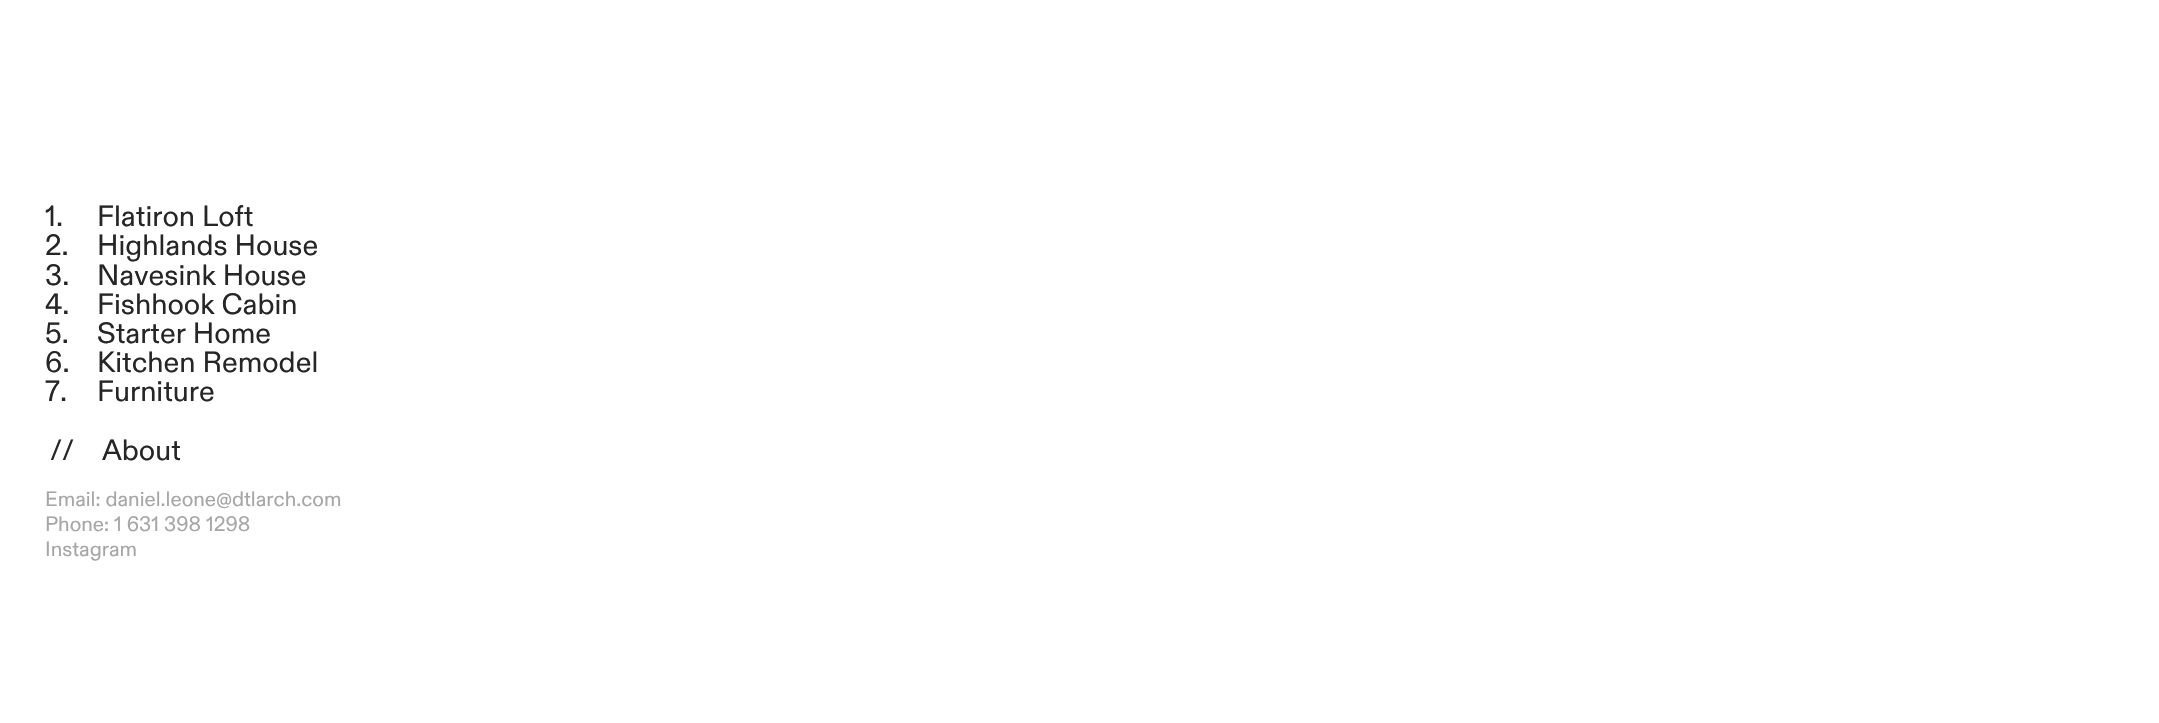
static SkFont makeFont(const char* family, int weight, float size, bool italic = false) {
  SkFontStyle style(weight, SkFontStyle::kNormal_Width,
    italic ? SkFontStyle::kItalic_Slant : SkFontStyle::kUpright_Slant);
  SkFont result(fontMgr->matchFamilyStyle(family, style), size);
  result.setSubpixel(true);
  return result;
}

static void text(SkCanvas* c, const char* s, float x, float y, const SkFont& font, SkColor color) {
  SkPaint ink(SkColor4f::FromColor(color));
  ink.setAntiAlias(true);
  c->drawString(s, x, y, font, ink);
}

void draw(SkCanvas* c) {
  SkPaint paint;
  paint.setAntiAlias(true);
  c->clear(0xffffffff);
  SkFont face1 = makeFont("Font", 400, 29.25f);
  text(c, "1.", 45, 226, face1, 0xff262626);
  text(c, "Flatiron Loft", 97, 226, face1, 0xff262626);
  text(c, "2.", 45, 255, face1, 0xff262626);
  text(c, "Highlands House", 97, 255, face1, 0xff262626);
  text(c, "3.", 45, 285, face1, 0xff262626);
  text(c, "Navesink House", 97, 285, face1, 0xff262626);
  text(c, "4.", 45, 314, face1, 0xff262626);
  text(c, "Fishhook Cabin", 97, 314, face1, 0xff262626);
  text(c, "5.", 45, 343, face1, 0xff262626);
  text(c, "Starter Home", 97, 343, face1, 0xff262626);
  text(c, "6.", 45, 372, face1, 0xff262626);
  text(c, "Kitchen Remodel", 97, 372, face1, 0xff262626);
  text(c, "7.", 45, 401, face1, 0xff262626);
  text(c, "Furniture", 97, 401, face1, 0xff262626);
  text(c, "//    About", 50, 460, face1, 0xff262626);
  SkFont face2 = makeFont("Font", 400, 20.8f);
  text(c, "Email: daniel.leone@dtlarch.com", 45, 506, face2, 0xffa6a6a6);
  text(c, "Phone: 1 631 398 1298", 45, 531, face2, 0xffa6a6a6);
  text(c, "Instagram", 45, 556, face2, 0xffa6a6a6);
}
